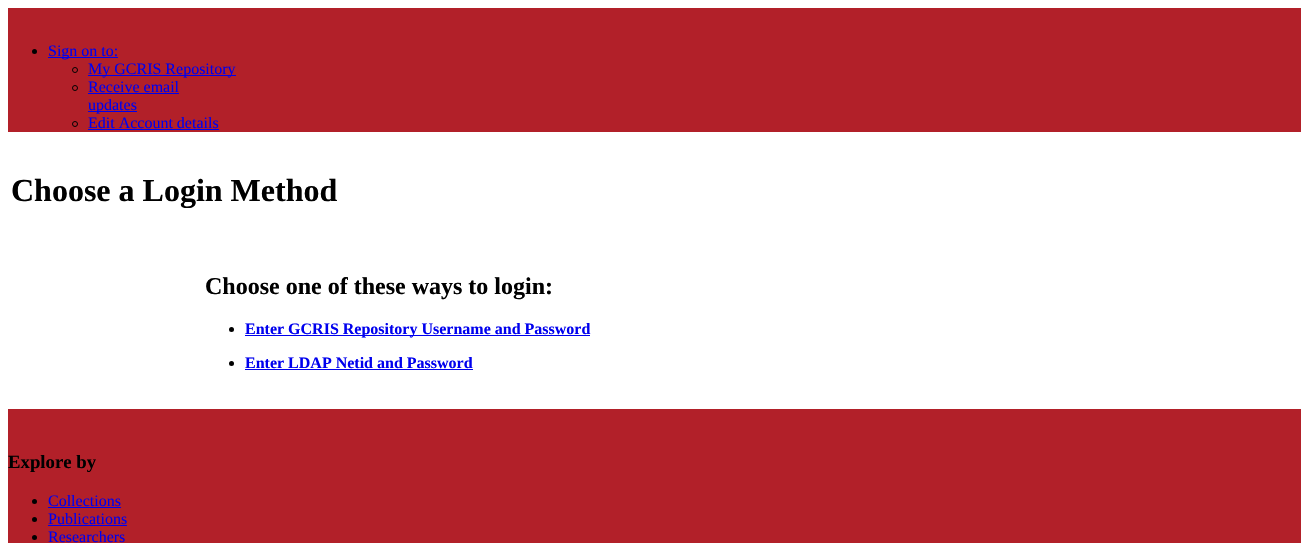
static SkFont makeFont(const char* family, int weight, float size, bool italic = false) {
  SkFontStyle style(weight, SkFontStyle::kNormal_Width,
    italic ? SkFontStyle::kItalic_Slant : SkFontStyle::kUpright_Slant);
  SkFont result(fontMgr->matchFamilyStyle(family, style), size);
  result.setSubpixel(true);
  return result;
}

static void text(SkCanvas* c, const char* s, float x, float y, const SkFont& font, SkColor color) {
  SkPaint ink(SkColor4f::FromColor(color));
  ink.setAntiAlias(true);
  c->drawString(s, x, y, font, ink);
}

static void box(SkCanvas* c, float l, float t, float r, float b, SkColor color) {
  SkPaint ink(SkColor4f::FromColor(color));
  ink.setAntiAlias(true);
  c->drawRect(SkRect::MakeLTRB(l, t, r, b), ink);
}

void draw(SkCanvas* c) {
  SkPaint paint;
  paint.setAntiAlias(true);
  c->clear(0xffffffff);
  box(c, 8, 8, 1301, 132, 0xffb22029);
  paint.setColor(0xff000000);
  c->drawCircle(34.5f, 51.5f, 2.5f, paint);
  box(c, 48, 57, 118, 58, 0xff0000ee);
  SkFont face1 = makeFont("Liberation Serif", 400, 16);
  text(c, "Sign on to:", 48, 56, face1, 0xff0000ee);
  paint.setStyle(SkPaint::kStroke_Style);
  paint.setStrokeWidth(1);
  c->drawCircle(75, 70, 2.5f, paint);
  box(c, 88, 75, 236, 76, 0xff0000ee);
  text(c, "My GCRIS Repository", 88, 74, face1, 0xff0000ee);
  c->drawCircle(75, 88, 2.5f, paint);
  text(c, "Receive email", 88, 92, face1, 0xff0000ee);
  box(c, 88, 93, 179, 94, 0xff0000ee);
  box(c, 88, 111, 137, 112, 0xff0000ee);
  text(c, "updates", 88, 110, face1, 0xff0000ee);
  c->drawCircle(75, 124, 2.5f, paint);
  text(c, "Edit Account details", 88, 128, face1, 0xff0000ee);
  box(c, 88, 129, 219, 130, 0xff0000ee);
  SkFont face2 = makeFont("Liberation Serif", 700, 32);
  text(c, "Choose a Login Method", 11, 201, face2, 0xff000000);
  SkFont face3 = makeFont("Liberation Serif", 700, 24);
  text(c, "Choose one of these ways to login:", 205, 294, face3, 0xff000000);
  paint.setStyle(SkPaint::kFill_Style);
  c->drawCircle(231.5f, 329.5f, 2.5f, paint);
  box(c, 245, 335, 590, 336, 0xff0000ee);
  SkFont face4 = makeFont("Liberation Serif", 700, 16);
  text(c, "Enter GCRIS Repository Username and Password", 245, 334, face4, 0xff0000ee);
  c->drawCircle(231.5f, 363.5f, 2.5f, paint);
  text(c, "Enter LDAP Netid and Password", 245, 368, face4, 0xff0000ee);
  box(c, 245, 369, 473, 370, 0xff0000ee);
  box(c, 8, 409, 1301, 543, 0xffb22029);
  SkFont face5 = makeFont("Liberation Serif", 700, 18.75f);
  text(c, "Explore by", 8, 468, face5, 0xff000000);
  c->drawCircle(34.5f, 501.5f, 2.5f, paint);
  text(c, "Collections", 48, 506, face1, 0xff0000ee);
  box(c, 48, 507, 121, 508, 0xff0000ee);
  c->drawCircle(34.5f, 519.5f, 2.5f, paint);
  text(c, "Publications", 48, 524, face1, 0xff0000ee);
  box(c, 48, 525, 127, 526, 0xff0000ee);
  c->drawCircle(34.5f, 537.5f, 2.5f, paint);
  text(c, "Researchers", 48, 542, face1, 0xff0000ee);
}
